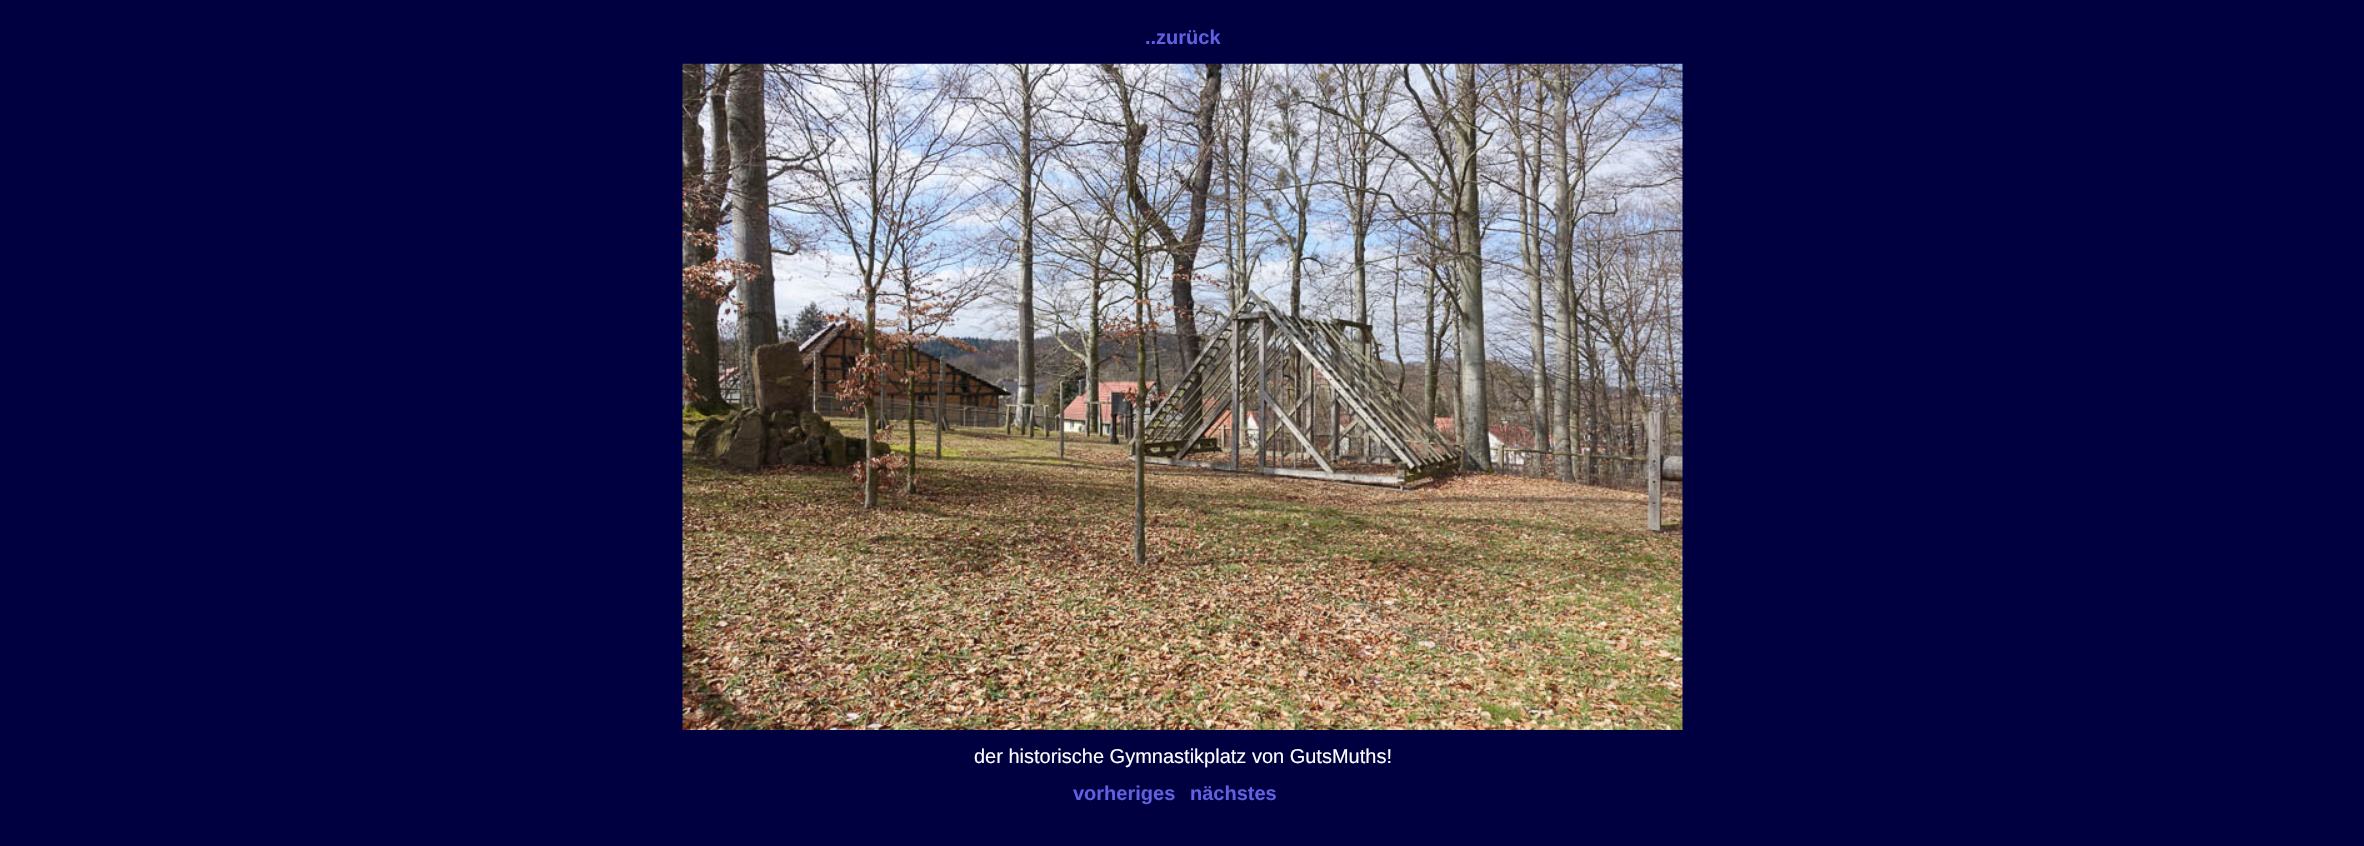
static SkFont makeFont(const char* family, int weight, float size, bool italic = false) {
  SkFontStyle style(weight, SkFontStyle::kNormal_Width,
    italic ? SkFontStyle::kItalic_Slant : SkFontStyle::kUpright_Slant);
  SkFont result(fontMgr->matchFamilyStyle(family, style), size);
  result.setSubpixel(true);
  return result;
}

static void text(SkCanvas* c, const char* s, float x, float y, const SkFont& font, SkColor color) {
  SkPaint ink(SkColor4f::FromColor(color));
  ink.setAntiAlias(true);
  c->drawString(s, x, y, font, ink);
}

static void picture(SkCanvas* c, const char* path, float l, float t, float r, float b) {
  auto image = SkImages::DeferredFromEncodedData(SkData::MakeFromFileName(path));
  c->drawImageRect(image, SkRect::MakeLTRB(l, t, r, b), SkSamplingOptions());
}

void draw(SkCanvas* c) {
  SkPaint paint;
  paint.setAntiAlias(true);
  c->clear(0xff000040);
  SkFont face1 = makeFont("Liberation Sans", 700, 20);
  text(c, "..zurück", 1145, 44, face1, 0xff6060e0);
  picture(c, "img_01.png", 682, 63, 1683, 730);
  SkFont face2 = makeFont("Liberation Sans", 400, 20);
  text(c, "der historische Gymnastikplatz von GutsMuths!", 974, 763, face2, 0xffffffff);
  text(c, "vorheriges", 1073, 800, face1, 0xff6060e0);
  text(c, "nächstes", 1190, 800, face1, 0xff6060e0);
}
